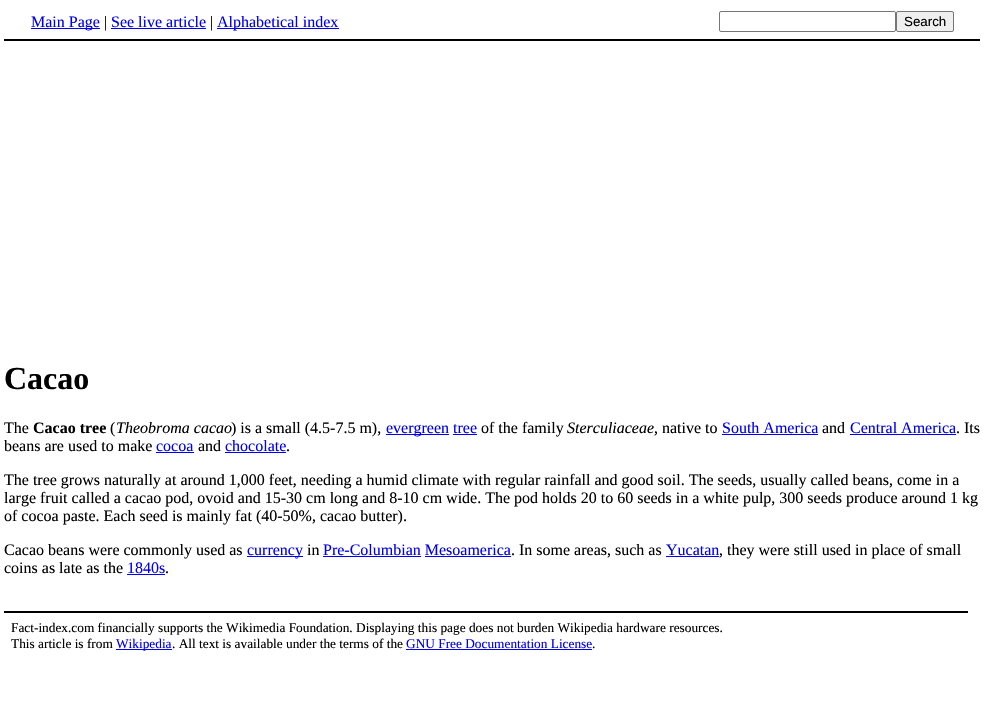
static SkFont makeFont(const char* family, int weight, float size, bool italic = false) {
  SkFontStyle style(weight, SkFontStyle::kNormal_Width,
    italic ? SkFontStyle::kItalic_Slant : SkFontStyle::kUpright_Slant);
  SkFont result(fontMgr->matchFamilyStyle(family, style), size);
  result.setSubpixel(true);
  return result;
}

static void text(SkCanvas* c, const char* s, float x, float y, const SkFont& font, SkColor color) {
  SkPaint ink(SkColor4f::FromColor(color));
  ink.setAntiAlias(true);
  c->drawString(s, x, y, font, ink);
}

static void box(SkCanvas* c, float l, float t, float r, float b, SkColor color) {
  SkPaint ink(SkColor4f::FromColor(color));
  ink.setAntiAlias(true);
  c->drawRect(SkRect::MakeLTRB(l, t, r, b), ink);
}

void draw(SkCanvas* c) {
  SkPaint paint;
  paint.setAntiAlias(true);
  c->clear(0xffffffff);
  box(c, 4, 39, 980, 41, 0xff000000);
  box(c, 31, 28, 100, 29, 0xff0000ee);
  SkFont face1 = makeFont("Liberation Serif", 400, 16);
  text(c, "Main Page", 31, 27, face1, 0xff0000ee);
  text(c, "|", 104, 27, face1, 0xff000000);
  text(c, "See live article", 111, 27, face1, 0xff0000ee);
  box(c, 111, 28, 206, 29, 0xff0000ee);
  text(c, "|", 210, 27, face1, 0xff000000);
  box(c, 217, 28, 339, 29, 0xff0000ee);
  text(c, "Alphabetical index", 217, 27, face1, 0xff0000ee);
  paint.setStyle(SkPaint::kStroke_Style);
  paint.setStrokeWidth(1);
  paint.setColor(0xff767676);
  c->drawRoundRect(SkRect::MakeLTRB(719.5f, 11.5f, 895.5f, 31.5f), 1.5f, 1.5f, paint);
  paint.setStyle(SkPaint::kFill_Style);
  paint.setColor(0xffefefef);
  c->drawRoundRect(SkRect::MakeLTRB(896.5f, 11.5f, 953.5f, 31.5f), 1.5f, 1.5f, paint);
  paint.setStyle(SkPaint::kStroke_Style);
  paint.setColor(0xff767676);
  c->drawRoundRect(SkRect::MakeLTRB(896.5f, 11.5f, 953.5f, 31.5f), 1.5f, 1.5f, paint);
  SkFont face2 = makeFont("Liberation Sans", 400, 13.33f);
  text(c, "Search", 904, 26, face2, 0xff000000);
  SkFont face3 = makeFont("Liberation Serif", 700, 32);
  text(c, "Cacao", 4, 389, face3, 0xff000000);
  text(c, "The", 4, 433, face1, 0xff000000);
  SkFont face4 = makeFont("Liberation Serif", 700, 16);
  text(c, "Cacao tree", 33, 433, face4, 0xff000000);
  text(c, "(", 110, 433, face1, 0xff000000);
  SkFont face5 = makeFont("Liberation Serif", 400, 16, true);
  text(c, "Theobroma cacao", 116, 433, face5, 0xff000000);
  text(c, ") is a small (4.5-7.5 m),", 231, 433, face1, 0xff000000);
  box(c, 386, 434, 449, 435, 0xff0000ee);
  text(c, "evergreen tree", 386, 433, face1, 0xff0000ee);
  text(c, "of the family", 481, 433, face1, 0xff000000);
  text(c, "Sterculiaceae", 567, 433, face5, 0xff000000);
  text(c, ", native to", 654, 433, face1, 0xff000000);
  text(c, "South America", 722, 433, face1, 0xff0000ee);
  box(c, 722, 434, 818, 435, 0xff0000ee);
  text(c, "and", 822, 433, face1, 0xff000000);
  text(c, "Central America", 850, 433, face1, 0xff0000ee);
  box(c, 850, 434, 956, 435, 0xff0000ee);
  text(c, ". Its", 956, 433, face1, 0xff000000);
  box(c, 453, 434, 477, 435, 0xff0000ee);
  text(c, "beans are used to make", 4, 451, face1, 0xff000000);
  text(c, "cocoa", 156, 451, face1, 0xff0000ee);
  box(c, 156, 452, 194, 453, 0xff0000ee);
  text(c, "and", 198, 451, face1, 0xff000000);
  text(c, "chocolate", 225, 451, face1, 0xff0000ee);
  box(c, 225, 452, 286, 453, 0xff0000ee);
  text(c, ".", 286, 451, face1, 0xff000000);
  text(c, "The tree grows naturally at around 1,000 feet, needing a humid climate with regular rainfall and good soil. The seeds, usually called beans, come in a", 4, 485, face1, 0xff000000);
  text(c, "large fruit called a cacao pod, ovoid and 15-30 cm long and 8-10 cm wide. The pod holds 20 to 60 seeds in a white pulp, 300 seeds produce around 1 kg", 4, 503, face1, 0xff000000);
  text(c, "of cocoa paste. Each seed is mainly fat (40-50%, cacao butter).", 4, 521, face1, 0xff000000);
  text(c, "Cacao beans were commonly used as", 4, 555, face1, 0xff000000);
  box(c, 247, 556, 303, 557, 0xff0000ee);
  text(c, "currency", 247, 555, face1, 0xff0000ee);
  text(c, "in", 307, 555, face1, 0xff000000);
  text(c, "Pre-Columbian Mesoamerica", 323, 555, face1, 0xff0000ee);
  box(c, 323, 556, 421, 557, 0xff0000ee);
  text(c, ". In some areas, such as", 511, 555, face1, 0xff000000);
  text(c, "Yucatan", 666, 555, face1, 0xff0000ee);
  box(c, 666, 556, 719, 557, 0xff0000ee);
  text(c, ", they were still used in place of small", 719, 555, face1, 0xff000000);
  box(c, 425, 556, 511, 557, 0xff0000ee);
  text(c, "coins as late as the", 4, 573, face1, 0xff000000);
  text(c, "1840s", 127, 573, face1, 0xff0000ee);
  box(c, 127, 574, 165, 575, 0xff0000ee);
  text(c, ".", 165, 573, face1, 0xff000000);
  box(c, 4, 611, 968, 613, 0xff000000);
  SkFont face6 = makeFont("Liberation Serif", 400, 13.33f);
  text(c, "Fact-index.com financially supports the Wikimedia Foundation. Displaying this page does not burden Wikipedia hardware resources.", 11, 632, face6, 0xff000000);
  text(c, "This article is from", 11, 648, face6, 0xff000000);
  box(c, 116, 649, 172, 650, 0xff0000ee);
  text(c, "Wikipedia", 116, 648, face6, 0xff0000ee);
  text(c, ". All text is available under the terms of the", 172, 648, face6, 0xff000000);
  text(c, "GNU Free Documentation License", 406, 648, face6, 0xff0000ee);
  text(c, ".", 592, 648, face6, 0xff000000);
  box(c, 406, 649, 592, 650, 0xff0000ee);
}
